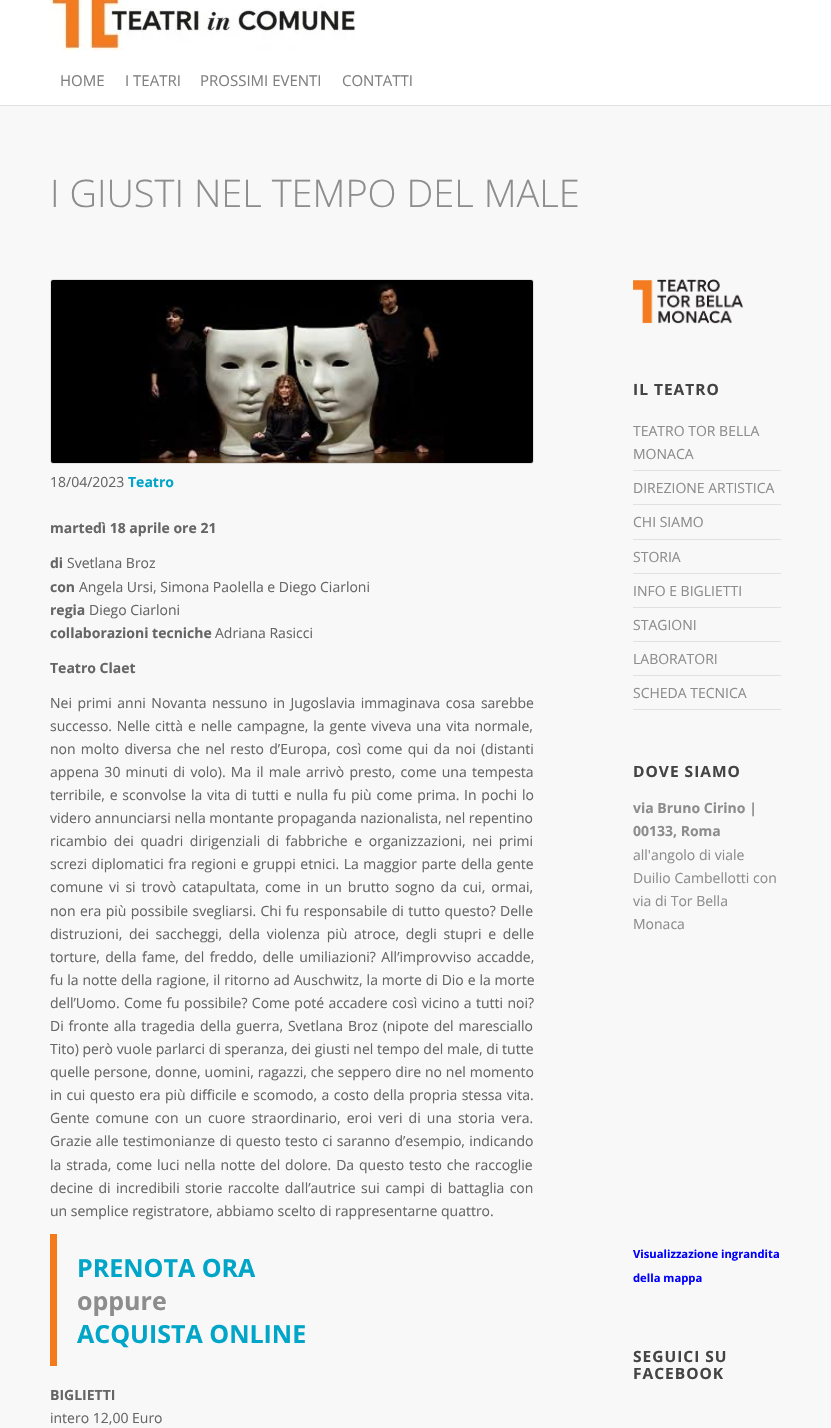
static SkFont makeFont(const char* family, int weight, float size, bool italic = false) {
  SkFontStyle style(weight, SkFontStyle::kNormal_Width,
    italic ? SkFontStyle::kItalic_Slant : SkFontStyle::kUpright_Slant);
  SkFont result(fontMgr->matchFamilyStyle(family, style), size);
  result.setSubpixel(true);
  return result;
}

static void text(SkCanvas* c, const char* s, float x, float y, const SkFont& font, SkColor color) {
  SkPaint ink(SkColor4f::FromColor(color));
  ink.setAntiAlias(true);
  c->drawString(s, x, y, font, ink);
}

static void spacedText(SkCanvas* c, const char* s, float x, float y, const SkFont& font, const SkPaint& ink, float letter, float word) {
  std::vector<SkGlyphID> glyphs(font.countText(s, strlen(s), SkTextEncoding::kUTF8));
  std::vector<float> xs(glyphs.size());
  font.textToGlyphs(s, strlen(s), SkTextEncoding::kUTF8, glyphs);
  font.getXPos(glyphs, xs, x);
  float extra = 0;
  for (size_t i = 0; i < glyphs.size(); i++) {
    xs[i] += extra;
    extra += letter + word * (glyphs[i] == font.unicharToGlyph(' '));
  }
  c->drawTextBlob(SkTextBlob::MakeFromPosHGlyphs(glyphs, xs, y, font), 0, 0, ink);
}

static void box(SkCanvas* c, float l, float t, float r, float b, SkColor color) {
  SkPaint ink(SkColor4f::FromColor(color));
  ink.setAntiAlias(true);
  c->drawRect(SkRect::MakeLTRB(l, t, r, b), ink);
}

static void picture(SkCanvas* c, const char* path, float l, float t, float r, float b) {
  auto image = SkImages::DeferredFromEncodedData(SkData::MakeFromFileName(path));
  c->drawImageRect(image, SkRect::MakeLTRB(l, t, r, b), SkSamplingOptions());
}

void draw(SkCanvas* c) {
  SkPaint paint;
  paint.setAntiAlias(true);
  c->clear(0xfff8f8f8);
  box(c, 0, 0, 831, 105, 0xffffffff);
  box(c, 0, 105, 831, 106, 0xffe1e1e1);
  picture(c, "img_01.png", 50, 0, 356, 51);
  SkFont face1 = makeFont("Open Sans", 400, 15);
  text(c, "HOME", 60, 86, face1, 0xff808080);
  text(c, "I TEATRI", 125, 86, face1, 0xff808080);
  text(c, "PROSSIMI EVENTI", 200, 86, face1, 0xff808080);
  text(c, "CONTATTI", 342, 86, face1, 0xff808080);
  SkFont face2 = makeFont("Open Sans", 300, 38);
  text(c, "I GIUSTI NEL TEMPO DEL MALE", 50, 207, face2, 0xff8d8d8d);
  paint.setStyle(SkPaint::kStroke_Style);
  paint.setStrokeWidth(1);
  paint.setColor(0xffe1e1e1);
  c->drawRoundRect(SkRect::MakeLTRB(50.5f, 279.5f, 533.5f, 463.5f), 2.5f, 2.5f, paint);
  picture(c, "img_02.png", 51, 280, 533, 463);
  SkFont face3 = makeFont("Open Sans", 400, 14);
  text(c, "18/04/2023", 50, 487, face3, 0xff666666);
  SkFont face4 = makeFont("Open Sans", 700, 14);
  text(c, "Teatro", 128, 487, face4, 0xff00a5c8);
  text(c, "martedì 18 aprile ore 21", 50, 533, face4, 0xff666666);
  text(c, "di", 50, 568, face4, 0xff666666);
  text(c, "Svetlana Broz", 67, 568, face3, 0xff666666);
  text(c, "con", 50, 592, face4, 0xff666666);
  text(c, "Angela Ursi, Simona Paolella e Diego Ciarloni", 79, 592, face3, 0xff666666);
  text(c, "regia", 50, 615, face4, 0xff666666);
  text(c, "Diego Ciarloni", 89, 615, face3, 0xff666666);
  text(c, "collaborazioni tecniche", 50, 638, face4, 0xff666666);
  text(c, "Adriana Rasicci", 215, 638, face3, 0xff666666);
  text(c, "Teatro Claet", 50, 673, face4, 0xff666666);
  paint.setStyle(SkPaint::kFill_Style);
  paint.setColor(0xff666666);
  spacedText(c, "Nei primi anni Novanta nessuno in Jugoslavia immaginava cosa sarebbe", 50, 708, face3, paint, 0, 1.9f);
  spacedText(c, "successo. Nelle città e nelle campagne, la gente viveva una vita normale,", 50, 731, face3, paint, 0, 1.25f);
  spacedText(c, "non molto diversa che nel resto d’Europa, così come qui da noi (distanti", 50, 754, face3, paint, 0, 1.6f);
  spacedText(c, "appena 30 minuti di volo). Ma il male arrivò presto, come una tempesta", 50, 777, face3, paint, 0, 1.6f);
  spacedText(c, "terribile, e sconvolse la vita di tutti e nulla fu più come prima. In pochi lo", 50, 800, face3, paint, 0, 1.1f);
  text(c, "videro annunciarsi nella montante propaganda nazionalista, nel repentino", 50, 823, face3, 0xff666666);
  spacedText(c, "ricambio dei quadri dirigenziali di fabbriche e organizzazioni, nei primi", 50, 846, face3, paint, 0, 3);
  spacedText(c, "screzi diplomatici fra regioni e gruppi etnici. La maggior parte della gente", 50, 869, face3, paint, 0, 0.9f);
  spacedText(c, "comune vi si trovò catapultata, come in un brutto sogno da cui, ormai,", 50, 892, face3, paint, 0, 2.25f);
  spacedText(c, "non era più possibile svegliarsi. Chi fu responsabile di tutto questo? Delle", 50, 916, face3, paint, 0, 0.75f);
  spacedText(c, "distruzioni, dei saccheggi, della violenza più atroce, degli stupri e delle", 50, 939, face3, paint, 0, 3);
  spacedText(c, "torture, della fame, del freddo, delle umiliazioni? All’improvviso accadde,", 50, 962, face3, paint, 0, 1.75f);
  spacedText(c, "fu la notte della ragione, il ritorno ad Auschwitz, la morte di Dio e la morte", 50, 985, face3, paint, 0, 0.25f);
  spacedText(c, "dell’Uomo. Come fu possibile? Come poté accadere così vicino a tutti noi?", 50, 1008, face3, paint, 0, 0.75f);
  spacedText(c, "Di fronte alla tragedia della guerra, Svetlana Broz (nipote del maresciallo", 50, 1031, face3, paint, 0, 1.25f);
  text(c, "Tito) però vuole parlarci di speranza, dei giusti nel tempo del male, di tutte", 50, 1054, face3, 0xff666666);
  spacedText(c, "quelle persone, donne, uomini, ragazzi, che seppero dire no nel momento", 50, 1077, face3, paint, 0, 0.25f);
  spacedText(c, "in cui questo era più difficile e scomodo, a costo della propria stessa vita.", 50, 1100, face3, paint, 0, 0.75f);
  spacedText(c, "Gente comune con un cuore straordinario, eroi veri di una storia vera.", 50, 1123, face3, paint, 0, 2.5f);
  spacedText(c, "Grazie alle testimonianze di questo testo ci saranno d’esempio, indicando", 50, 1146, face3, paint, 0, 0.6f);
  spacedText(c, "la strada, come luci nella notte del dolore. Da questo testo che raccoglie", 50, 1170, face3, paint, 0, 1.25f);
  spacedText(c, "decine di incredibili storie raccolte dall’autrice sui campi di battaglia con", 50, 1193, face3, paint, 0, 1.75f);
  text(c, "un semplice registratore, abbiamo scelto di rappresentarne quattro.", 50, 1216, face3, 0xff666666);
  box(c, 50, 1234, 57, 1366, 0xfff57a1c);
  SkFont face5 = makeFont("Open Sans", 700, 25);
  text(c, "PRENOTA ORA", 77, 1277, face5, 0xff00a5c8);
  text(c, "oppure", 77, 1310, face5, 0xff8d8d8d);
  text(c, "ACQUISTA ONLINE", 77, 1343, face5, 0xff00a5c8);
  text(c, "BIGLIETTI", 50, 1400, face4, 0xff666666);
  text(c, "intero 12,00 Euro", 50, 1423, face3, 0xff666666);
  picture(c, "img_03.png", 633, 279, 744, 324);
  SkFont face6 = makeFont("Open Sans", 700, 15.5f);
  paint.setColor(0xff444444);
  spacedText(c, "IL TEATRO", 633, 395, face6, paint, 1, 0);
  box(c, 633, 470, 781, 471, 0xffe1e1e1);
  text(c, "TEATRO TOR BELLA", 633, 436, face3, 0xff8d8d8d);
  text(c, "MONACA", 633, 459, face3, 0xff8d8d8d);
  box(c, 633, 504, 781, 505, 0xffe1e1e1);
  text(c, "DIREZIONE ARTISTICA", 633, 493, face3, 0xff8d8d8d);
  box(c, 633, 539, 781, 540, 0xffe1e1e1);
  text(c, "CHI SIAMO", 633, 527, face3, 0xff8d8d8d);
  box(c, 633, 573, 781, 574, 0xffe1e1e1);
  text(c, "STORIA", 633, 562, face3, 0xff8d8d8d);
  box(c, 633, 607, 781, 608, 0xffe1e1e1);
  text(c, "INFO E BIGLIETTI", 633, 596, face3, 0xff8d8d8d);
  box(c, 633, 641, 781, 642, 0xffe1e1e1);
  text(c, "STAGIONI", 633, 630, face3, 0xff8d8d8d);
  box(c, 633, 675, 781, 676, 0xffe1e1e1);
  text(c, "LABORATORI", 633, 664, face3, 0xff8d8d8d);
  box(c, 633, 709, 781, 710, 0xffe1e1e1);
  text(c, "SCHEDA TECNICA", 633, 698, face3, 0xff8d8d8d);
  spacedText(c, "DOVE SIAMO", 633, 777, face6, paint, 1, 0);
  text(c, "via Bruno Cirino |", 633, 813, face4, 0xff8d8d8d);
  text(c, "00133, Roma", 633, 836, face4, 0xff8d8d8d);
  text(c, "all'angolo di viale", 633, 860, face3, 0xff8d8d8d);
  text(c, "Duilio Cambellotti con", 633, 883, face3, 0xff8d8d8d);
  text(c, "via di Tor Bella", 633, 906, face3, 0xff8d8d8d);
  text(c, "Monaca", 633, 929, face3, 0xff8d8d8d);
  SkFont face7 = makeFont("Open Sans", 700, 11.25f);
  text(c, "Visualizzazione ingrandita", 633, 1258, face7, 0xff0000ff);
  text(c, "della mappa", 633, 1282, face7, 0xff0000ff);
  spacedText(c, "SEGUICI SU", 633, 1362, face6, paint, 1, 0);
  spacedText(c, "FACEBOOK", 633, 1379, face6, paint, 1, 0);
}
